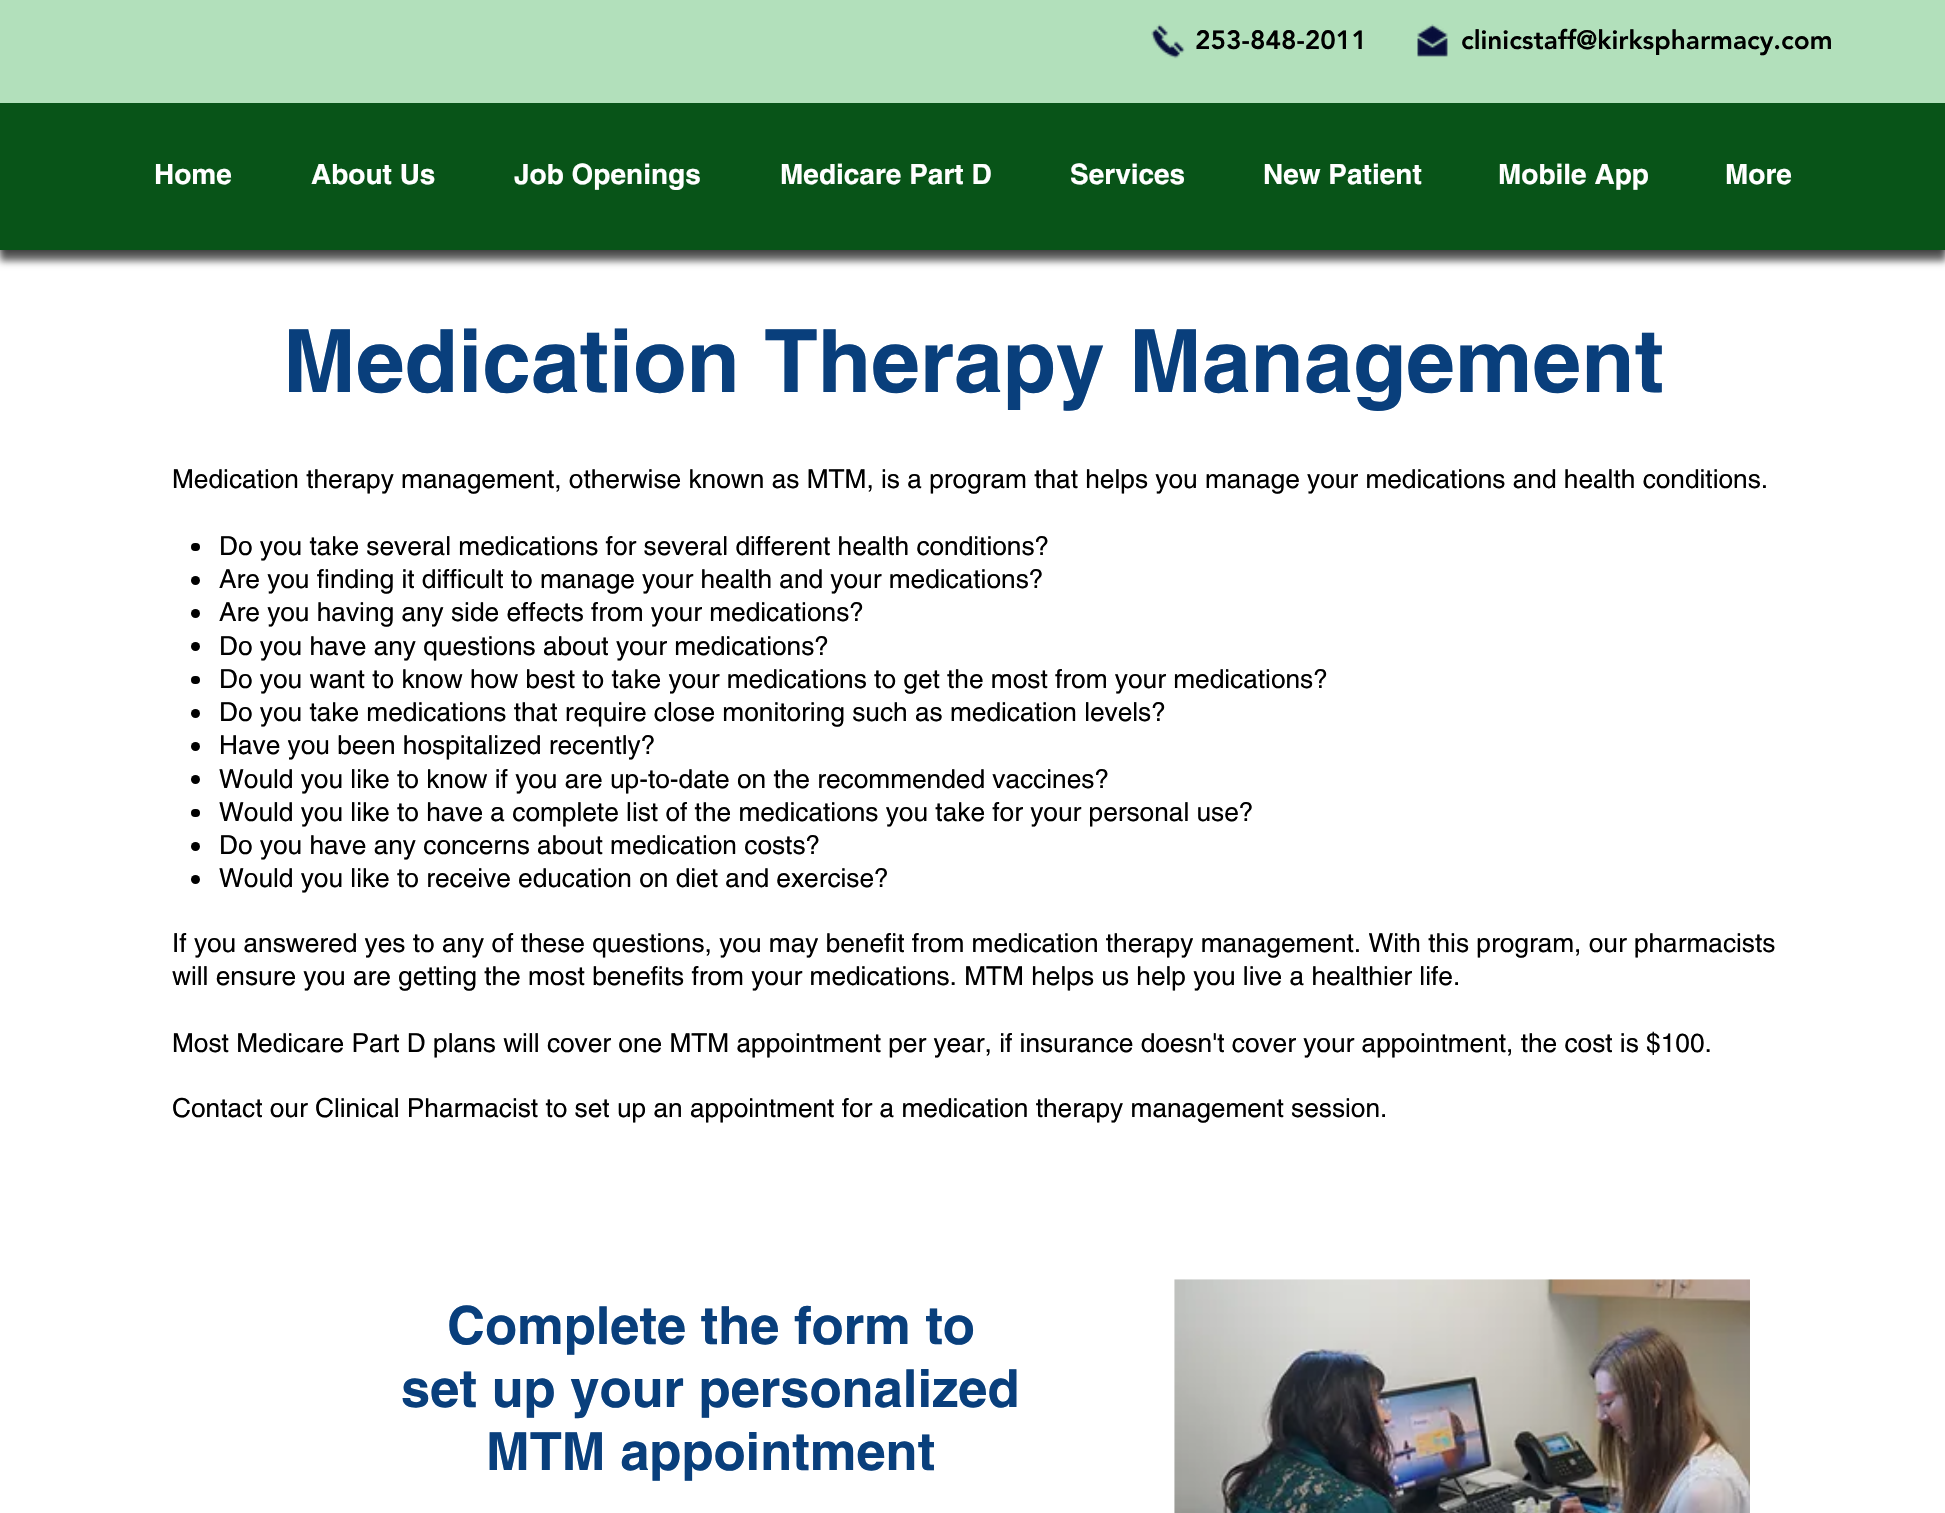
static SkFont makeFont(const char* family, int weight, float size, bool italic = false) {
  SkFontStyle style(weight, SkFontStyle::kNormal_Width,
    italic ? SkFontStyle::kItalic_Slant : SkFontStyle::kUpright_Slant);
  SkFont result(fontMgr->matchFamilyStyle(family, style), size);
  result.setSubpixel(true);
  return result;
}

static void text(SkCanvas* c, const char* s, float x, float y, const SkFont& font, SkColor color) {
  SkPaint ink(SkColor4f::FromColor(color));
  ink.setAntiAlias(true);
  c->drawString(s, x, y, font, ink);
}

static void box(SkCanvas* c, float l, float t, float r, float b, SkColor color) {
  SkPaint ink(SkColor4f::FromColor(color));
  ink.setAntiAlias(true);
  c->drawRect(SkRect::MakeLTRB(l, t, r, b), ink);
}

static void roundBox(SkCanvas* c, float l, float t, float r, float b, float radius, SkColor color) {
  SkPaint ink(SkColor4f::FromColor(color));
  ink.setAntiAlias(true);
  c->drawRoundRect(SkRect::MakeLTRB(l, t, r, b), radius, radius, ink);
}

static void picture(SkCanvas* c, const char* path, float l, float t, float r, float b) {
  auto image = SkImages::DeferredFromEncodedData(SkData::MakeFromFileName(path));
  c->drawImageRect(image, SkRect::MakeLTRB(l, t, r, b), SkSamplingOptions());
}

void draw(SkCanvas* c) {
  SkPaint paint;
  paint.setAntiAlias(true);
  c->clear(0xffffffff);
  paint.setColor(0xb3000000);
  paint.setMaskFilter(SkMaskFilter::MakeBlur(kNormal_SkBlurStyle, 4.5f));
  c->drawRect(SkRect::MakeLTRB(0, 0, 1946, 250), paint);
  paint.setMaskFilter(nullptr);
  paint.setColor(0x99000000);
  paint.setMaskFilter(SkMaskFilter::MakeBlur(kNormal_SkBlurStyle, 3.5f));
  c->drawRect(SkRect::MakeLTRB(0, 110, 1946, 261), paint);
  paint.setMaskFilter(nullptr);
  box(c, 0, 0, 1945, 103, 0xffb2e0bb);
  picture(c, "img_01.png", 1151, 24, 1185, 59);
  picture(c, "img_02.png", 1417, 24, 1448, 57);
  SkFont face1 = makeFont("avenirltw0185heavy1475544", 900, 26.25f);
  text(c, "253-848-2011", 1195, 49, face1, 0xff000000);
  text(c, "clinicstaff@kirkspharmacy.com", 1461, 49, face1, 0xff000000);
  box(c, 0, 103, 1945, 250, 0xff085418);
  SkFont face2 = makeFont("helvetica", 700, 28);
  text(c, "Home", 154, 184, face2, 0xffffffff);
  text(c, "About Us", 311, 184, face2, 0xffffffff);
  text(c, "Job Openings", 514, 184, face2, 0xffffffff);
  text(c, "Medicare Part D", 780, 184, face2, 0xffffffff);
  text(c, "Services", 1070, 184, face2, 0xffffffff);
  text(c, "New Patient", 1263, 184, face2, 0xffffffff);
  text(c, "Mobile App", 1498, 184, face2, 0xffffffff);
  text(c, "More", 1725, 184, face2, 0xffffffff);
  SkFont face3 = makeFont("helvetica", 700, 87.5f);
  text(c, "Medication Therapy Management", 283, 392, face3, 0xff093f7c);
  SkFont face4 = makeFont("helvetica", 400, 26.25f);
  text(c, "Medication therapy management, otherwise known as MTM, is a program that helps you manage your medications and health conditions.", 172, 488, face4, 0xff000000);
  roundBox(c, 191, 543, 200, 551, 4, 0xff000000);
  text(c, "Do you take several medications for several different health conditions?", 219, 555, face4, 0xff000000);
  paint.setColor(0xff000000);
  c->drawCircle(195.5f, 580.5f, 4.5f, paint);
  text(c, "Are you finding it difficult to manage your health and your medications?", 219, 588, face4, 0xff000000);
  c->drawCircle(195.5f, 613.5f, 4.5f, paint);
  text(c, "Are you having any side effects from your medications?", 219, 621, face4, 0xff000000);
  c->drawCircle(195.5f, 646.5f, 4.5f, paint);
  text(c, "Do you have any questions about your medications?", 219, 655, face4, 0xff000000);
  roundBox(c, 191, 676, 200, 684, 4, 0xff000000);
  text(c, "Do you want to know how best to take your medications to get the most from your medications?", 219, 688, face4, 0xff000000);
  c->drawCircle(195.5f, 713.5f, 4.5f, paint);
  text(c, "Do you take medications that require close monitoring such as medication levels?", 219, 721, face4, 0xff000000);
  c->drawCircle(195.5f, 746.5f, 4.5f, paint);
  text(c, "Have you been hospitalized recently?", 219, 754, face4, 0xff000000);
  c->drawCircle(195.5f, 779.5f, 4.5f, paint);
  text(c, "Would you like to know if you are up-to-date on the recommended vaccines?", 219, 788, face4, 0xff000000);
  roundBox(c, 191, 809, 200, 817, 4, 0xff000000);
  text(c, "Would you like to have a complete list of the medications you take for your personal use?", 219, 821, face4, 0xff000000);
  c->drawCircle(195.5f, 846.5f, 4.5f, paint);
  text(c, "Do you have any concerns about medication costs?", 219, 854, face4, 0xff000000);
  c->drawCircle(195.5f, 879.5f, 4.5f, paint);
  text(c, "Would you like to receive education on diet and exercise?", 219, 887, face4, 0xff000000);
  text(c, "If you answered yes to any of these questions, you may benefit from medication therapy management. With this program, our pharmacists", 172, 952, face4, 0xff000000);
  text(c, "will ensure you are getting the most benefits from your medications. MTM helps us help you live a healthier life.", 172, 985, face4, 0xff000000);
  text(c, "Most Medicare Part D plans will cover one MTM appointment per year, if insurance doesn't cover your appointment, the cost is $100.", 172, 1052, face4, 0xff000000);
  text(c, "Contact our Clinical Pharmacist to set up an appointment for a medication therapy management session.", 172, 1117, face4, 0xff000000);
  SkFont face5 = makeFont("helvetica", 700, 52.5f);
  text(c, "Complete the form to", 447, 1344, face5, 0xff093f7c);
  text(c, "set up your personalized", 401, 1407, face5, 0xff093f7c);
  text(c, "MTM appointment", 486, 1470, face5, 0xff093f7c);
  picture(c, "img_03.png", 1174, 1279, 1750, 1513);
}
